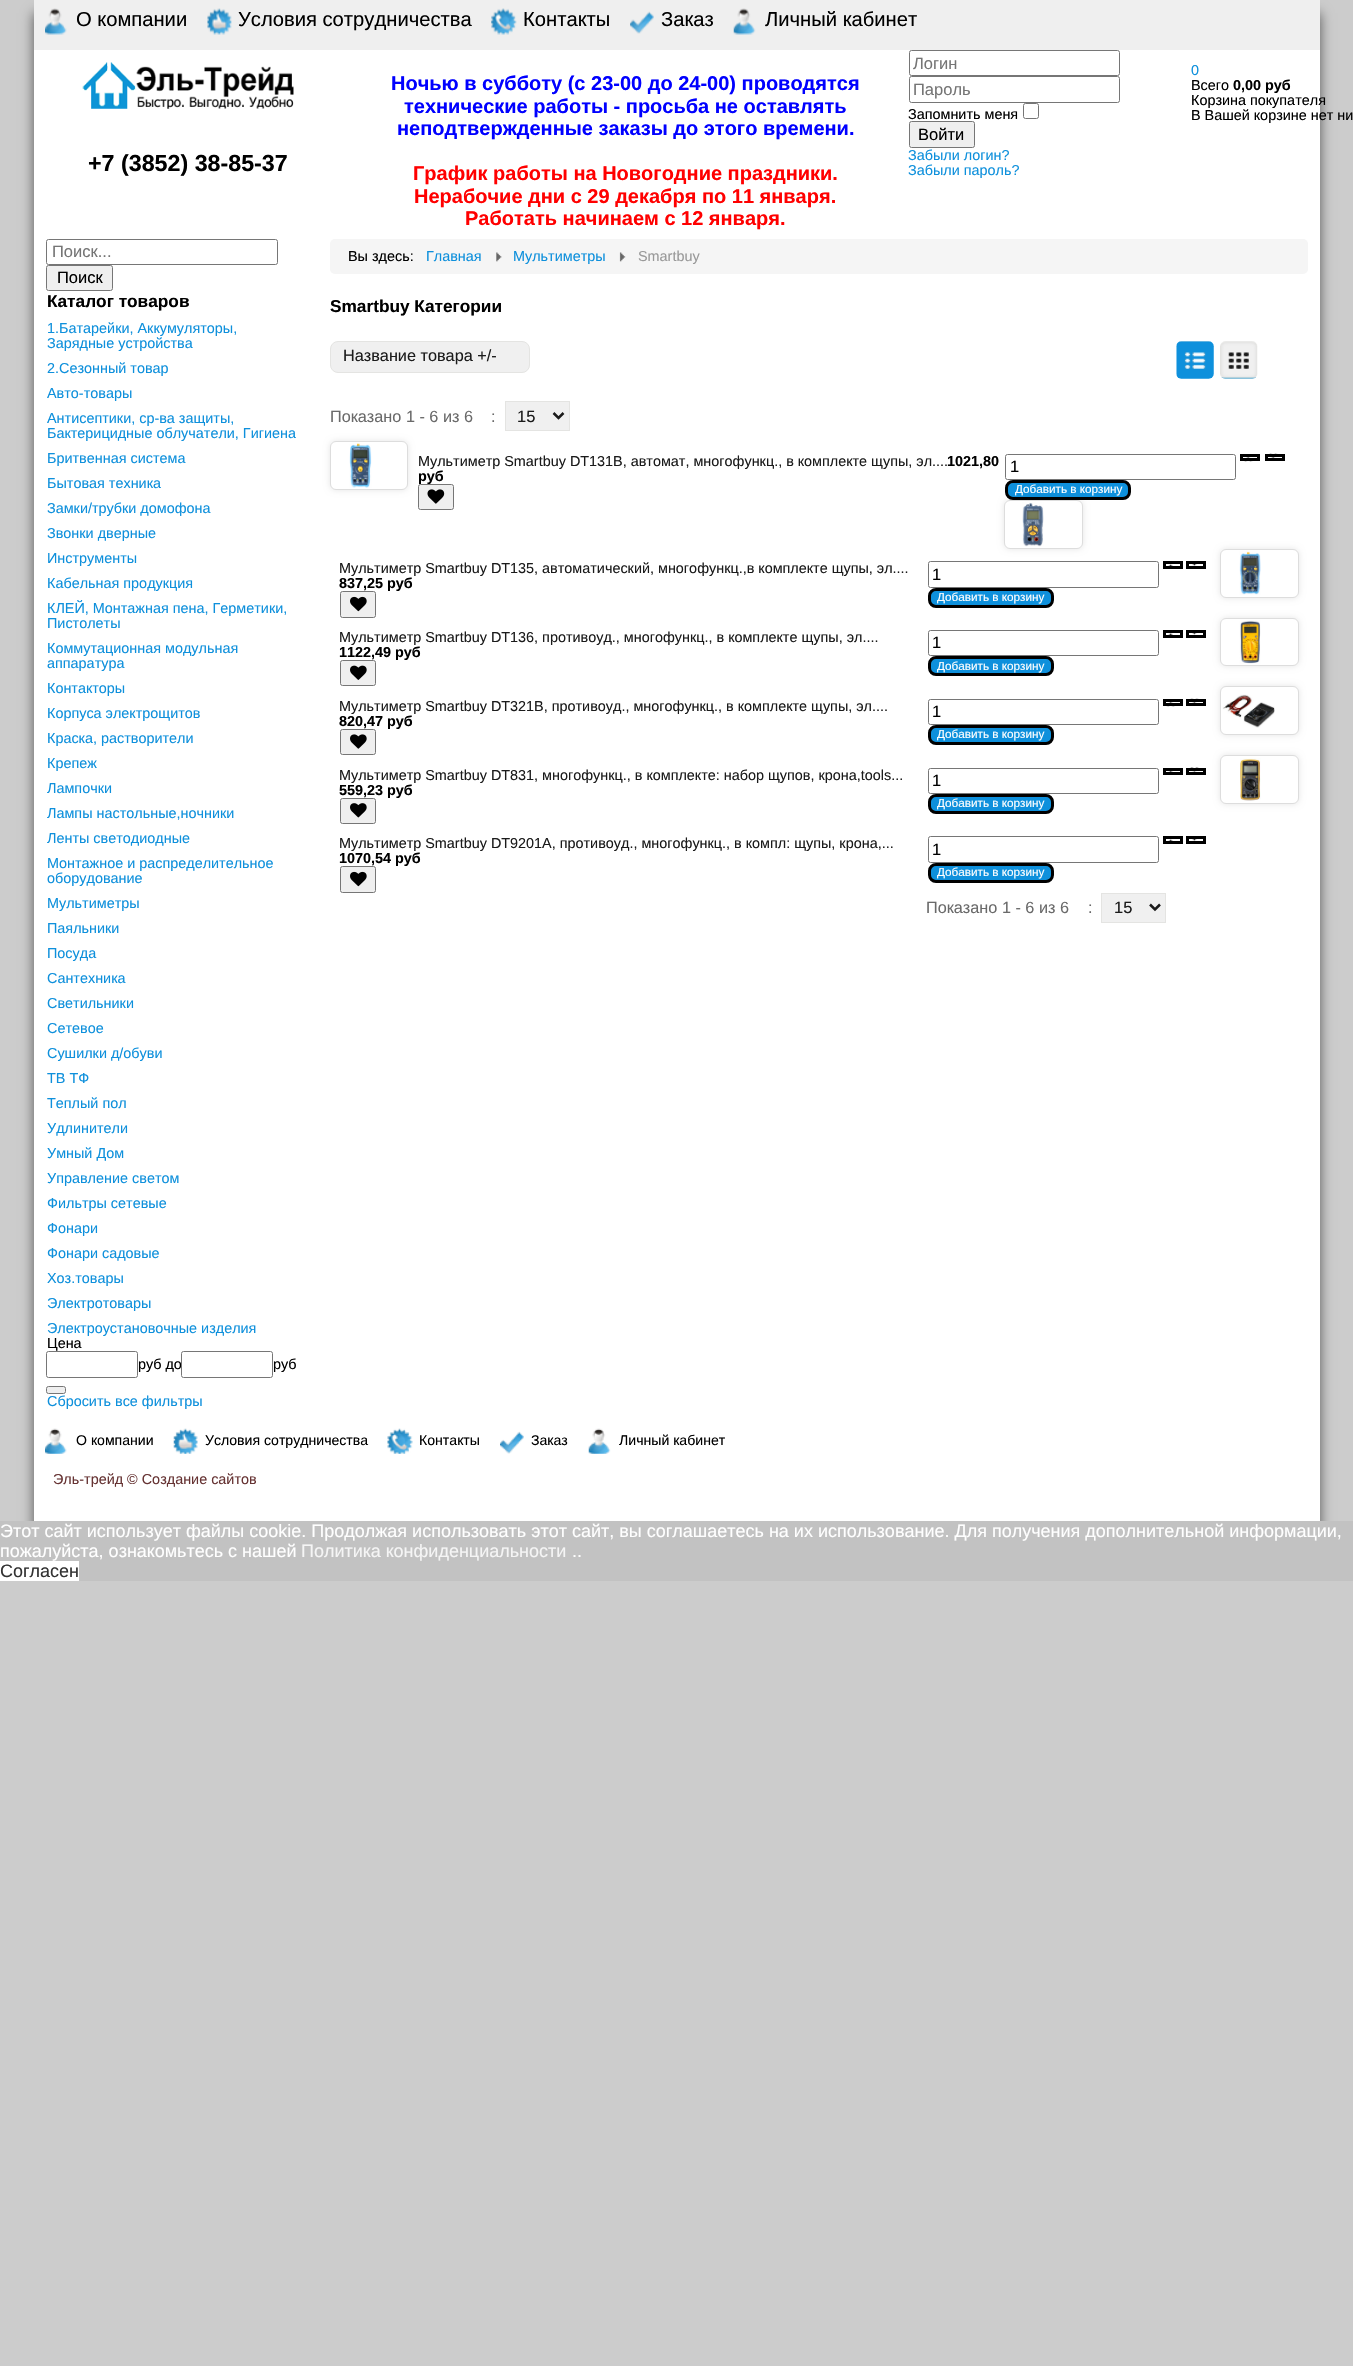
static SkFont makeFont(const char* family, int weight, float size, bool italic = false) {
  SkFontStyle style(weight, SkFontStyle::kNormal_Width,
    italic ? SkFontStyle::kItalic_Slant : SkFontStyle::kUpright_Slant);
  SkFont result(fontMgr->matchFamilyStyle(family, style), size);
  result.setSubpixel(true);
  return result;
}

static void text(SkCanvas* c, const char* s, float x, float y, const SkFont& font, SkColor color) {
  SkPaint ink(SkColor4f::FromColor(color));
  ink.setAntiAlias(true);
  c->drawString(s, x, y, font, ink);
}

static void box(SkCanvas* c, float l, float t, float r, float b, SkColor color) {
  SkPaint ink(SkColor4f::FromColor(color));
  ink.setAntiAlias(true);
  c->drawRect(SkRect::MakeLTRB(l, t, r, b), ink);
}

static void roundBox(SkCanvas* c, float l, float t, float r, float b, float radius, SkColor color) {
  SkPaint ink(SkColor4f::FromColor(color));
  ink.setAntiAlias(true);
  c->drawRoundRect(SkRect::MakeLTRB(l, t, r, b), radius, radius, ink);
}

static void picture(SkCanvas* c, const char* path, float l, float t, float r, float b) {
  auto image = SkImages::DeferredFromEncodedData(SkData::MakeFromFileName(path));
  c->drawImageRect(image, SkRect::MakeLTRB(l, t, r, b), SkSamplingOptions());
}

void draw(SkCanvas* c) {
  SkPaint paint;
  paint.setAntiAlias(true);
  c->clear(0xffcccccc);
  paint.setColor(0xff555555);
  paint.setMaskFilter(SkMaskFilter::MakeBlur(kNormal_SkBlurStyle, 6));
  c->drawRect(SkRect::MakeLTRB(34, 13, 1320, 1534), paint);
  paint.setMaskFilter(nullptr);
  box(c, 34, 50, 1320, 1521, 0xffffffff);
  box(c, 34, 0, 1320, 50, 0xffefefef);
  picture(c, "img_01.png", 45, 8, 67, 35);
  SkFont face1 = makeFont("Liberation Sans", 400, 20.2f);
  text(c, "О компании", 76, 26, face1, 0xff000000);
  picture(c, "img_02.png", 207, 8, 232, 35);
  text(c, "Условия сотрудничества", 238, 26, face1, 0xff000000);
  picture(c, "img_03.png", 491, 8, 517, 35);
  text(c, "Контакты", 523, 26, face1, 0xff000000);
  picture(c, "img_04.png", 630, 11, 654, 34);
  text(c, "Заказ", 661, 26, face1, 0xff000000);
  picture(c, "img_05.png", 733, 8, 756, 35);
  text(c, "Личный кабинет", 765, 26, face1, 0xff000000);
  picture(c, "img_06.png", 82, 62, 294, 109);
  SkFont face2 = makeFont("Liberation Sans", 700, 23.25f);
  text(c, "+7 (3852) 38-85-37", 88, 171, face2, 0xff000000);
  SkFont face3 = makeFont("Liberation Sans", 700, 20);
  text(c, "Ночью в субботу (с 23-00 до 24-00) проводятся", 391, 90, face3, 0xff0000ff);
  text(c, "технические работы - просьба не оставлять", 404, 113, face3, 0xff0000ff);
  text(c, "неподтвержденные заказы до этого времени.", 397, 135, face3, 0xff0000ff);
  text(c, "График работы на Новогодние праздники.", 413, 180, face3, 0xffff0000);
  text(c, "Нерабочие дни с 29 декабря по 11 января.", 414, 203, face3, 0xffff0000);
  text(c, "Работать начинаем с 12 января.", 465, 225, face3, 0xffff0000);
  paint.setStyle(SkPaint::kStroke_Style);
  paint.setStrokeWidth(1);
  paint.setColor(0xff767676);
  c->drawRoundRect(SkRect::MakeLTRB(909.5f, 50.5f, 1119.5f, 75.5f), 2, 2, paint);
  SkFont face4 = makeFont("Liberation Sans", 400, 16.5f);
  text(c, "Логин", 913, 69, face4, 0xff757575);
  c->drawRoundRect(SkRect::MakeLTRB(909.5f, 76.5f, 1119.5f, 102.5f), 2, 2, paint);
  text(c, "Пароль", 913, 95, face4, 0xff757575);
  SkFont face5 = makeFont("Liberation Sans", 400, 14.4f);
  text(c, "Запомнить меня", 908, 119, face5, 0xff000000);
  c->drawRoundRect(SkRect::MakeLTRB(1023.5f, 103.5f, 1038.5f, 118.5f), 2, 2, paint);
  paint.setStyle(SkPaint::kFill_Style);
  paint.setColor(0xffefefef);
  c->drawRoundRect(SkRect::MakeLTRB(909.5f, 121.5f, 974.5f, 147.5f), 2, 2, paint);
  paint.setStyle(SkPaint::kStroke_Style);
  paint.setColor(0xff767676);
  c->drawRoundRect(SkRect::MakeLTRB(909.5f, 121.5f, 974.5f, 147.5f), 2, 2, paint);
  text(c, "Войти", 918, 140, face4, 0xff000000);
  text(c, "Забыли логин?", 908, 160, face5, 0xff0e90dc);
  text(c, "Забыли пароль?", 908, 175, face5, 0xff0e90dc);
  text(c, "0", 1191, 75, face5, 0xff0e90dc);
  text(c, "Всего", 1191, 90, face5, 0xff000000);
  SkFont face6 = makeFont("Liberation Sans", 700, 14.4f);
  text(c, "0,00 руб", 1233, 90, face6, 0xff000000);
  text(c, "Корзина покупателя", 1191, 105, face5, 0xff000000);
  text(c, "В Вашей корзине нет ни", 1191, 120, face5, 0xff000000);
  c->drawRoundRect(SkRect::MakeLTRB(46.5f, 239.5f, 277.5f, 264.5f), 2, 2, paint);
  text(c, "Поиск...", 52, 257, face4, 0xff757575);
  paint.setStyle(SkPaint::kFill_Style);
  paint.setColor(0xffefefef);
  c->drawRoundRect(SkRect::MakeLTRB(46.5f, 265.5f, 112.5f, 290.5f), 2, 2, paint);
  paint.setStyle(SkPaint::kStroke_Style);
  paint.setColor(0xff767676);
  c->drawRoundRect(SkRect::MakeLTRB(46.5f, 265.5f, 112.5f, 290.5f), 2, 2, paint);
  text(c, "Поиск", 57, 283, face4, 0xff000000);
  SkFont face7 = makeFont("Liberation Sans", 700, 17.25f);
  text(c, "Каталог товаров", 47, 307, face7, 0xff000000);
  text(c, "1.Батарейки, Аккумуляторы,", 47, 333, face5, 0xff0e90dc);
  text(c, "Зарядные устройства", 47, 348, face5, 0xff0e90dc);
  text(c, "2.Сезонный товар", 47, 373, face5, 0xff0e90dc);
  text(c, "Авто-товары", 47, 398, face5, 0xff0e90dc);
  text(c, "Антисептики, ср-ва защиты,", 47, 423, face5, 0xff0e90dc);
  text(c, "Бактерицидные облучатели, Гигиена", 47, 438, face5, 0xff0e90dc);
  text(c, "Бритвенная система", 47, 463, face5, 0xff0e90dc);
  text(c, "Бытовая техника", 47, 488, face5, 0xff0e90dc);
  text(c, "Замки/трубки домофона", 47, 513, face5, 0xff0e90dc);
  text(c, "Звонки дверные", 47, 538, face5, 0xff0e90dc);
  text(c, "Инструменты", 47, 563, face5, 0xff0e90dc);
  text(c, "Кабельная продукция", 47, 588, face5, 0xff0e90dc);
  text(c, "КЛЕЙ, Монтажная пена, Герметики,", 47, 613, face5, 0xff0e90dc);
  text(c, "Пистолеты", 47, 628, face5, 0xff0e90dc);
  text(c, "Коммутационная модульная", 47, 653, face5, 0xff0e90dc);
  text(c, "аппаратура", 47, 668, face5, 0xff0e90dc);
  text(c, "Контакторы", 47, 693, face5, 0xff0e90dc);
  text(c, "Корпуса электрощитов", 47, 718, face5, 0xff0e90dc);
  text(c, "Краска, растворители", 47, 743, face5, 0xff0e90dc);
  text(c, "Крепеж", 47, 768, face5, 0xff0e90dc);
  text(c, "Лампочки", 47, 793, face5, 0xff0e90dc);
  text(c, "Лампы настольные,ночники", 47, 818, face5, 0xff0e90dc);
  text(c, "Ленты светодиодные", 47, 843, face5, 0xff0e90dc);
  text(c, "Монтажное и распределительное", 47, 868, face5, 0xff0e90dc);
  text(c, "оборудование", 47, 883, face5, 0xff0e90dc);
  text(c, "Мультиметры", 47, 908, face5, 0xff0e90dc);
  text(c, "Паяльники", 47, 933, face5, 0xff0e90dc);
  text(c, "Посуда", 47, 958, face5, 0xff0e90dc);
  text(c, "Сантехника", 47, 983, face5, 0xff0e90dc);
  text(c, "Светильники", 47, 1008, face5, 0xff0e90dc);
  text(c, "Сетевое", 47, 1033, face5, 0xff0e90dc);
  text(c, "Сушилки д/обуви", 47, 1058, face5, 0xff0e90dc);
  text(c, "ТВ ТФ", 47, 1083, face5, 0xff0e90dc);
  text(c, "Теплый пол", 47, 1108, face5, 0xff0e90dc);
  text(c, "Удлинители", 47, 1133, face5, 0xff0e90dc);
  text(c, "Умный Дом", 47, 1158, face5, 0xff0e90dc);
  text(c, "Управление светом", 47, 1183, face5, 0xff0e90dc);
  text(c, "Фильтры сетевые", 47, 1208, face5, 0xff0e90dc);
  text(c, "Фонари", 47, 1233, face5, 0xff0e90dc);
  text(c, "Фонари садовые", 47, 1258, face5, 0xff0e90dc);
  text(c, "Хоз.товары", 47, 1283, face5, 0xff0e90dc);
  text(c, "Электротовары", 47, 1308, face5, 0xff0e90dc);
  text(c, "Электроустановочные изделия", 47, 1333, face5, 0xff0e90dc);
  text(c, "Цена", 47, 1348, face5, 0xff000000);
  c->drawRoundRect(SkRect::MakeLTRB(46.5f, 1351.5f, 137.5f, 1377.5f), 2, 2, paint);
  text(c, "руб до", 138, 1369, face5, 0xff000000);
  paint.setStyle(SkPaint::kFill_Style);
  paint.setColor(0xffffffff);
  c->drawRoundRect(SkRect::MakeLTRB(181.5f, 1351.5f, 272.5f, 1377.5f), 2, 2, paint);
  paint.setStyle(SkPaint::kStroke_Style);
  paint.setColor(0xff767676);
  c->drawRoundRect(SkRect::MakeLTRB(181.5f, 1351.5f, 272.5f, 1377.5f), 2, 2, paint);
  text(c, "руб", 273, 1369, face5, 0xff000000);
  paint.setStyle(SkPaint::kFill_Style);
  paint.setColor(0xffefefef);
  c->drawRoundRect(SkRect::MakeLTRB(46.5f, 1386.5f, 65.5f, 1393.5f), 2, 2, paint);
  paint.setStyle(SkPaint::kStroke_Style);
  paint.setColor(0xff767676);
  c->drawRoundRect(SkRect::MakeLTRB(46.5f, 1386.5f, 65.5f, 1393.5f), 2, 2, paint);
  text(c, "Сбросить все фильтры", 47, 1406, face5, 0xff0e90dc);
  roundBox(c, 330, 239, 1308, 274, 5, 0xfff5f5f5);
  text(c, "Вы здесь:", 348, 261, face5, 0xff000000);
  text(c, "Главная", 426, 261, face5, 0xff0e90dc);
  picture(c, "img_07.png", 496, 252, 502, 262);
  text(c, "Мультиметры", 513, 261, face5, 0xff0e90dc);
  picture(c, "img_08.png", 619, 252, 626, 262);
  text(c, "Smartbuy", 638, 261, face5, 0xff999999);
  text(c, "Smartbuy Категории", 330, 312, face7, 0xff000000);
  paint.setStyle(SkPaint::kFill_Style);
  paint.setColor(0xfff0f0f0);
  c->drawRoundRect(SkRect::MakeLTRB(330.5f, 341.5f, 529.5f, 372.5f), 7.5f, 7.5f, paint);
  paint.setStyle(SkPaint::kStroke_Style);
  paint.setColor(0xffe4e4e2);
  c->drawRoundRect(SkRect::MakeLTRB(330.5f, 341.5f, 529.5f, 372.5f), 7.5f, 7.5f, paint);
  SkFont face8 = makeFont("Liberation Sans", 400, 16.25f);
  text(c, "Название товара +/-", 343, 361, face8, 0xff1b1b1b);
  picture(c, "img_09.png", 1176, 341, 1214, 379);
  picture(c, "img_10.png", 1220, 341, 1258, 379);
  text(c, "Показано 1 - 6 из 6", 330, 422, face8, 0xff6a6a6a);
  text(c, ":", 491, 422, face8, 0xff6a6a6a);
  paint.setStyle(SkPaint::kFill_Style);
  paint.setColor(0xfff0f0f0);
  c->drawRect(SkRect::MakeLTRB(505.5f, 401.5f, 569.5f, 430.5f), paint);
  paint.setStyle(SkPaint::kStroke_Style);
  paint.setColor(0xffe4e4e2);
  c->drawRect(SkRect::MakeLTRB(505.5f, 401.5f, 569.5f, 430.5f), paint);
  paint.setStrokeWidth(2.5f);
  paint.setColor(0xff1b1b1b);
  c->drawPath(SkPathBuilder().moveTo(553.5f, 413).lineTo(558.5f, 418).lineTo(563.5f, 413).detach(), paint);
  text(c, "15", 517, 422, face4, 0xff1b1b1b);
  paint.setStyle(SkPaint::kFill_Style);
  paint.setColor(0x1a000000);
  paint.setMaskFilter(SkMaskFilter::MakeBlur(kNormal_SkBlurStyle, 3));
  c->drawRoundRect(SkRect::MakeLTRB(330, 441, 408, 490), 6, 6, paint);
  paint.setMaskFilter(nullptr);
  paint.setColor(0xffffffff);
  c->drawRoundRect(SkRect::MakeLTRB(330.5f, 441.5f, 407.5f, 489.5f), 5.5f, 5.5f, paint);
  paint.setStyle(SkPaint::kStroke_Style);
  paint.setStrokeWidth(1);
  paint.setColor(0xffdddddd);
  c->drawRoundRect(SkRect::MakeLTRB(330.5f, 441.5f, 407.5f, 489.5f), 5.5f, 5.5f, paint);
  picture(c, "img_11.png", 349, 443, 372, 488);
  text(c, "Мультиметр Smartbuy DT131B, автомат, многофункц., в комплекте щупы, эл....", 418, 466, face5, 0xff1b1b1b);
  text(c, "1021,80", 947, 466, face6, 0xff000000);
  text(c, "руб", 418, 481, face6, 0xff000000);
  paint.setStyle(SkPaint::kFill_Style);
  paint.setColor(0xffefefef);
  c->drawRoundRect(SkRect::MakeLTRB(418.5f, 484.5f, 453.5f, 509.5f), 2, 2, paint);
  paint.setStyle(SkPaint::kStroke_Style);
  paint.setColor(0xff767676);
  c->drawRoundRect(SkRect::MakeLTRB(418.5f, 484.5f, 453.5f, 509.5f), 2, 2, paint);
  picture(c, "img_12.png", 427, 489, 445, 504);
  picture(c, "img_13.png", 1244, 457, 1253, 462);
  paint.setStrokeWidth(3);
  paint.setColor(0xff000000);
  c->drawRect(SkRect::MakeLTRB(1241.5f, 455.5f, 1258.5f, 459.5f), paint);
  picture(c, "img_14.png", 1269, 453, 1278, 458);
  c->drawRect(SkRect::MakeLTRB(1266.5f, 455.5f, 1283.5f, 459.5f), paint);
  paint.setStrokeWidth(1);
  paint.setColor(0xff767676);
  c->drawRoundRect(SkRect::MakeLTRB(1005.5f, 454.5f, 1235.5f, 479.5f), 2, 2, paint);
  text(c, "1", 1010, 472, face4, 0xff000000);
  paint.setStyle(SkPaint::kFill_Style);
  paint.setColor(0xff0e90dc);
  c->drawRoundRect(SkRect::MakeLTRB(1006.5f, 481.5f, 1129.5f, 498.5f), 6.5f, 6.5f, paint);
  paint.setStyle(SkPaint::kStroke_Style);
  paint.setStrokeWidth(3);
  paint.setColor(0xff000000);
  c->drawRoundRect(SkRect::MakeLTRB(1006.5f, 481.5f, 1129.5f, 498.5f), 6.5f, 6.5f, paint);
  SkFont face9 = makeFont("Liberation Sans", 400, 11.75f);
  text(c, "Добавить в корзину", 1015, 493, face9, 0xffffffff);
  paint.setStyle(SkPaint::kFill_Style);
  paint.setColor(0x1a000000);
  paint.setMaskFilter(SkMaskFilter::MakeBlur(kNormal_SkBlurStyle, 3));
  c->drawRoundRect(SkRect::MakeLTRB(1004, 500, 1083, 549), 6, 6, paint);
  paint.setMaskFilter(nullptr);
  paint.setColor(0xffffffff);
  c->drawRoundRect(SkRect::MakeLTRB(1004.5f, 500.5f, 1082.5f, 548.5f), 5.5f, 5.5f, paint);
  paint.setStyle(SkPaint::kStroke_Style);
  paint.setStrokeWidth(1);
  paint.setColor(0xffdddddd);
  c->drawRoundRect(SkRect::MakeLTRB(1004.5f, 500.5f, 1082.5f, 548.5f), 5.5f, 5.5f, paint);
  picture(c, "img_15.png", 1022, 502, 1044, 547);
  text(c, "Мультиметр Smartbuy DT135, автоматический, многофункц.,в комплекте щупы, эл....", 339, 573, face5, 0xff1b1b1b);
  text(c, "837,25 руб", 339, 588, face6, 0xff000000);
  paint.setStyle(SkPaint::kFill_Style);
  paint.setColor(0xffefefef);
  c->drawRoundRect(SkRect::MakeLTRB(340.5f, 591.5f, 375.5f, 617.5f), 2, 2, paint);
  paint.setStyle(SkPaint::kStroke_Style);
  paint.setColor(0xff767676);
  c->drawRoundRect(SkRect::MakeLTRB(340.5f, 591.5f, 375.5f, 617.5f), 2, 2, paint);
  picture(c, "img_16.png", 350, 596, 367, 612);
  picture(c, "img_17.png", 1168, 564, 1173, 566);
  paint.setStrokeWidth(3);
  paint.setColor(0xff000000);
  c->drawRect(SkRect::MakeLTRB(1164.5f, 562.5f, 1181.5f, 567.5f), paint);
  picture(c, "img_18.png", 1192, 564, 1197, 566);
  c->drawRect(SkRect::MakeLTRB(1187.5f, 562.5f, 1204.5f, 567.5f), paint);
  paint.setStrokeWidth(1);
  paint.setColor(0xff767676);
  c->drawRoundRect(SkRect::MakeLTRB(928.5f, 561.5f, 1158.5f, 587.5f), 2, 2, paint);
  text(c, "1", 932, 580, face4, 0xff000000);
  paint.setStyle(SkPaint::kFill_Style);
  paint.setColor(0xff0e90dc);
  c->drawRoundRect(SkRect::MakeLTRB(929.5f, 589.5f, 1052.5f, 606.5f), 6.5f, 6.5f, paint);
  paint.setStyle(SkPaint::kStroke_Style);
  paint.setStrokeWidth(3);
  paint.setColor(0xff000000);
  c->drawRoundRect(SkRect::MakeLTRB(929.5f, 589.5f, 1052.5f, 606.5f), 6.5f, 6.5f, paint);
  text(c, "Добавить в корзину", 937, 601, face9, 0xffffffff);
  paint.setStyle(SkPaint::kFill_Style);
  paint.setColor(0x1a000000);
  paint.setMaskFilter(SkMaskFilter::MakeBlur(kNormal_SkBlurStyle, 3));
  c->drawRoundRect(SkRect::MakeLTRB(1220, 549, 1299, 598), 6, 6, paint);
  paint.setMaskFilter(nullptr);
  paint.setColor(0xffffffff);
  c->drawRoundRect(SkRect::MakeLTRB(1220.5f, 549.5f, 1298.5f, 597.5f), 5.5f, 5.5f, paint);
  paint.setStyle(SkPaint::kStroke_Style);
  paint.setStrokeWidth(1);
  paint.setColor(0xffdddddd);
  c->drawRoundRect(SkRect::MakeLTRB(1220.5f, 549.5f, 1298.5f, 597.5f), 5.5f, 5.5f, paint);
  picture(c, "img_19.png", 1239, 551, 1261, 595);
  text(c, "Мультиметр Smartbuy DT136, противоуд., многофункц., в комплекте щупы, эл....", 339, 642, face5, 0xff1b1b1b);
  text(c, "1122,49 руб", 339, 657, face6, 0xff000000);
  paint.setStyle(SkPaint::kFill_Style);
  paint.setColor(0xffefefef);
  c->drawRoundRect(SkRect::MakeLTRB(340.5f, 660.5f, 375.5f, 685.5f), 2, 2, paint);
  paint.setStyle(SkPaint::kStroke_Style);
  paint.setColor(0xff767676);
  c->drawRoundRect(SkRect::MakeLTRB(340.5f, 660.5f, 375.5f, 685.5f), 2, 2, paint);
  picture(c, "img_20.png", 350, 665, 367, 680);
  picture(c, "img_21.png", 1168, 633, 1173, 635);
  paint.setStrokeWidth(3);
  paint.setColor(0xff000000);
  c->drawRect(SkRect::MakeLTRB(1164.5f, 631.5f, 1181.5f, 636.5f), paint);
  picture(c, "img_22.png", 1192, 633, 1197, 635);
  c->drawRect(SkRect::MakeLTRB(1187.5f, 631.5f, 1204.5f, 636.5f), paint);
  paint.setStrokeWidth(1);
  paint.setColor(0xff767676);
  c->drawRoundRect(SkRect::MakeLTRB(928.5f, 630.5f, 1158.5f, 655.5f), 2, 2, paint);
  text(c, "1", 932, 648, face4, 0xff000000);
  paint.setStyle(SkPaint::kFill_Style);
  paint.setColor(0xff0e90dc);
  c->drawRoundRect(SkRect::MakeLTRB(929.5f, 657.5f, 1052.5f, 674.5f), 6.5f, 6.5f, paint);
  paint.setStyle(SkPaint::kStroke_Style);
  paint.setStrokeWidth(3);
  paint.setColor(0xff000000);
  c->drawRoundRect(SkRect::MakeLTRB(929.5f, 657.5f, 1052.5f, 674.5f), 6.5f, 6.5f, paint);
  text(c, "Добавить в корзину", 937, 670, face9, 0xffffffff);
  paint.setStyle(SkPaint::kFill_Style);
  paint.setColor(0x1a000000);
  paint.setMaskFilter(SkMaskFilter::MakeBlur(kNormal_SkBlurStyle, 3));
  c->drawRoundRect(SkRect::MakeLTRB(1220, 618, 1299, 666), 6, 6, paint);
  paint.setMaskFilter(nullptr);
  paint.setColor(0xffffffff);
  c->drawRoundRect(SkRect::MakeLTRB(1220.5f, 618.5f, 1298.5f, 665.5f), 5.5f, 5.5f, paint);
  paint.setStyle(SkPaint::kStroke_Style);
  paint.setStrokeWidth(1);
  paint.setColor(0xffdddddd);
  c->drawRoundRect(SkRect::MakeLTRB(1220.5f, 618.5f, 1298.5f, 665.5f), 5.5f, 5.5f, paint);
  picture(c, "img_23.png", 1222, 620, 1261, 664);
  text(c, "Мультиметр Smartbuy DT321B, противоуд., многофункц., в комплекте щупы, эл....", 339, 711, face5, 0xff1b1b1b);
  text(c, "820,47 руб", 339, 726, face6, 0xff000000);
  paint.setStyle(SkPaint::kFill_Style);
  paint.setColor(0xffefefef);
  c->drawRoundRect(SkRect::MakeLTRB(340.5f, 729.5f, 375.5f, 754.5f), 2, 2, paint);
  paint.setStyle(SkPaint::kStroke_Style);
  paint.setColor(0xff767676);
  c->drawRoundRect(SkRect::MakeLTRB(340.5f, 729.5f, 375.5f, 754.5f), 2, 2, paint);
  picture(c, "img_24.png", 350, 734, 367, 749);
  picture(c, "img_25.png", 1166, 702, 1175, 707);
  paint.setStrokeWidth(3);
  paint.setColor(0xff000000);
  c->drawRect(SkRect::MakeLTRB(1164.5f, 700.5f, 1181.5f, 704.5f), paint);
  picture(c, "img_26.png", 1190, 698, 1199, 703);
  c->drawRect(SkRect::MakeLTRB(1187.5f, 700.5f, 1204.5f, 704.5f), paint);
  paint.setStrokeWidth(1);
  paint.setColor(0xff767676);
  c->drawRoundRect(SkRect::MakeLTRB(928.5f, 699.5f, 1158.5f, 724.5f), 2, 2, paint);
  text(c, "1", 932, 717, face4, 0xff000000);
  paint.setStyle(SkPaint::kFill_Style);
  paint.setColor(0xff0e90dc);
  c->drawRoundRect(SkRect::MakeLTRB(929.5f, 726.5f, 1052.5f, 743.5f), 6.5f, 6.5f, paint);
  paint.setStyle(SkPaint::kStroke_Style);
  paint.setStrokeWidth(3);
  paint.setColor(0xff000000);
  c->drawRoundRect(SkRect::MakeLTRB(929.5f, 726.5f, 1052.5f, 743.5f), 6.5f, 6.5f, paint);
  text(c, "Добавить в корзину", 937, 738, face9, 0xffffffff);
  paint.setStyle(SkPaint::kFill_Style);
  paint.setColor(0x1a000000);
  paint.setMaskFilter(SkMaskFilter::MakeBlur(kNormal_SkBlurStyle, 3));
  c->drawRoundRect(SkRect::MakeLTRB(1220, 686, 1299, 735), 6, 6, paint);
  paint.setMaskFilter(nullptr);
  paint.setColor(0xffffffff);
  c->drawRoundRect(SkRect::MakeLTRB(1220.5f, 686.5f, 1298.5f, 734.5f), 5.5f, 5.5f, paint);
  paint.setStyle(SkPaint::kStroke_Style);
  paint.setStrokeWidth(1);
  paint.setColor(0xffdddddd);
  c->drawRoundRect(SkRect::MakeLTRB(1220.5f, 686.5f, 1298.5f, 734.5f), 5.5f, 5.5f, paint);
  picture(c, "img_27.png", 1222, 694, 1275, 728);
  text(c, "Мультиметр Smartbuy DT831, многофункц., в комплекте: набор щупов, крона,tools...", 339, 780, face5, 0xff1b1b1b);
  text(c, "559,23 руб", 339, 795, face6, 0xff000000);
  paint.setStyle(SkPaint::kFill_Style);
  paint.setColor(0xffefefef);
  c->drawRoundRect(SkRect::MakeLTRB(340.5f, 798.5f, 375.5f, 823.5f), 2, 2, paint);
  paint.setStyle(SkPaint::kStroke_Style);
  paint.setColor(0xff767676);
  c->drawRoundRect(SkRect::MakeLTRB(340.5f, 798.5f, 375.5f, 823.5f), 2, 2, paint);
  picture(c, "img_28.png", 350, 803, 367, 818);
  picture(c, "img_29.png", 1168, 771, 1173, 772);
  paint.setStrokeWidth(3);
  paint.setColor(0xff000000);
  c->drawRect(SkRect::MakeLTRB(1164.5f, 769.5f, 1181.5f, 773.5f), paint);
  picture(c, "img_30.png", 1190, 767, 1199, 772);
  c->drawRect(SkRect::MakeLTRB(1187.5f, 769.5f, 1204.5f, 773.5f), paint);
  paint.setStrokeWidth(1);
  paint.setColor(0xff767676);
  c->drawRoundRect(SkRect::MakeLTRB(928.5f, 768.5f, 1158.5f, 793.5f), 2, 2, paint);
  text(c, "1", 932, 786, face4, 0xff000000);
  paint.setStyle(SkPaint::kFill_Style);
  paint.setColor(0xff0e90dc);
  c->drawRoundRect(SkRect::MakeLTRB(929.5f, 795.5f, 1052.5f, 812.5f), 6.5f, 6.5f, paint);
  paint.setStyle(SkPaint::kStroke_Style);
  paint.setStrokeWidth(3);
  paint.setColor(0xff000000);
  c->drawRoundRect(SkRect::MakeLTRB(929.5f, 795.5f, 1052.5f, 812.5f), 6.5f, 6.5f, paint);
  text(c, "Добавить в корзину", 937, 807, face9, 0xffffffff);
  paint.setStyle(SkPaint::kFill_Style);
  paint.setColor(0x1a000000);
  paint.setMaskFilter(SkMaskFilter::MakeBlur(kNormal_SkBlurStyle, 3));
  c->drawRoundRect(SkRect::MakeLTRB(1220, 755, 1299, 804), 6, 6, paint);
  paint.setMaskFilter(nullptr);
  paint.setColor(0xffffffff);
  c->drawRoundRect(SkRect::MakeLTRB(1220.5f, 755.5f, 1298.5f, 803.5f), 5.5f, 5.5f, paint);
  paint.setStyle(SkPaint::kStroke_Style);
  paint.setStrokeWidth(1);
  paint.setColor(0xffdddddd);
  c->drawRoundRect(SkRect::MakeLTRB(1220.5f, 755.5f, 1298.5f, 803.5f), 5.5f, 5.5f, paint);
  picture(c, "img_31.png", 1240, 758, 1261, 801);
  text(c, "Мультиметр Smartbuy DT9201A, противоуд., многофункц., в компл: щупы, крона,...", 339, 848, face5, 0xff1b1b1b);
  text(c, "1070,54 руб", 339, 863, face6, 0xff000000);
  paint.setStyle(SkPaint::kFill_Style);
  paint.setColor(0xffefefef);
  c->drawRoundRect(SkRect::MakeLTRB(340.5f, 866.5f, 375.5f, 892.5f), 2, 2, paint);
  paint.setStyle(SkPaint::kStroke_Style);
  paint.setColor(0xff767676);
  c->drawRoundRect(SkRect::MakeLTRB(340.5f, 866.5f, 375.5f, 892.5f), 2, 2, paint);
  picture(c, "img_16.png", 350, 871, 367, 887);
  picture(c, "img_17.png", 1168, 839, 1173, 841);
  paint.setStrokeWidth(3);
  paint.setColor(0xff000000);
  c->drawRect(SkRect::MakeLTRB(1164.5f, 837.5f, 1181.5f, 842.5f), paint);
  picture(c, "img_18.png", 1192, 839, 1197, 841);
  c->drawRect(SkRect::MakeLTRB(1187.5f, 837.5f, 1204.5f, 842.5f), paint);
  paint.setStrokeWidth(1);
  paint.setColor(0xff767676);
  c->drawRoundRect(SkRect::MakeLTRB(928.5f, 836.5f, 1158.5f, 862.5f), 2, 2, paint);
  text(c, "1", 932, 855, face4, 0xff000000);
  paint.setStyle(SkPaint::kFill_Style);
  paint.setColor(0xff0e90dc);
  c->drawRoundRect(SkRect::MakeLTRB(929.5f, 864.5f, 1052.5f, 881.5f), 6.5f, 6.5f, paint);
  paint.setStyle(SkPaint::kStroke_Style);
  paint.setStrokeWidth(3);
  paint.setColor(0xff000000);
  c->drawRoundRect(SkRect::MakeLTRB(929.5f, 864.5f, 1052.5f, 881.5f), 6.5f, 6.5f, paint);
  text(c, "Добавить в корзину", 937, 876, face9, 0xffffffff);
  text(c, "Показано 1 - 6 из 6", 926, 913, face8, 0xff6a6a6a);
  text(c, ":", 1088, 913, face8, 0xff6a6a6a);
  paint.setStyle(SkPaint::kFill_Style);
  paint.setColor(0xfff0f0f0);
  c->drawRect(SkRect::MakeLTRB(1101.5f, 893.5f, 1165.5f, 922.5f), paint);
  paint.setStyle(SkPaint::kStroke_Style);
  paint.setStrokeWidth(1);
  paint.setColor(0xffe4e4e2);
  c->drawRect(SkRect::MakeLTRB(1101.5f, 893.5f, 1165.5f, 922.5f), paint);
  paint.setStrokeWidth(2.5f);
  paint.setColor(0xff1b1b1b);
  c->drawPath(SkPathBuilder().moveTo(1150, 904.5f).lineTo(1155, 909.5f).lineTo(1160, 904.5f).detach(), paint);
  text(c, "15", 1114, 913, face4, 0xff1b1b1b);
  picture(c, "img_32.png", 45, 1428, 67, 1454);
  SkFont face10 = makeFont("Liberation Sans", 400, 14.1f);
  text(c, "О компании", 76, 1445, face10, 0xff000000);
  picture(c, "img_33.png", 173, 1428, 198, 1454);
  text(c, "Условия сотрудничества", 205, 1445, face10, 0xff000000);
  picture(c, "img_34.png", 387, 1428, 413, 1454);
  text(c, "Контакты", 419, 1445, face10, 0xff000000);
  picture(c, "img_35.png", 500, 1431, 524, 1454);
  text(c, "Заказ", 531, 1445, face10, 0xff000000);
  picture(c, "img_36.png", 588, 1428, 611, 1454);
  text(c, "Личный кабинет", 619, 1445, face10, 0xff000000);
  text(c, "Эль-трейд © Создание сайтов", 53, 1484, face5, 0xff663333);
  box(c, 0, 1521, 1353, 1581, 0xffc2c2c2);
  SkFont face11 = makeFont("Liberation Sans", 400, 18);
  text(c, "Этот сайт использует файлы cookie. Продолжая использовать этот сайт, вы соглашаетесь на их использование. Для получения дополнительной информации,", 0, 1537, face11, 0xffffffff);
  text(c, "пожалуйста, ознакомьтесь с нашей", 0, 1557, face11, 0xffffffff);
  text(c, "Политика конфиденциальности", 301, 1557, face11, 0xfff5f5f5);
  text(c, "..", 572, 1557, face11, 0xffffffff);
  box(c, 0, 1561, 79, 1581, 0xffffffff);
  text(c, "Согласен", 0, 1577, face11, 0xff333333);
}
